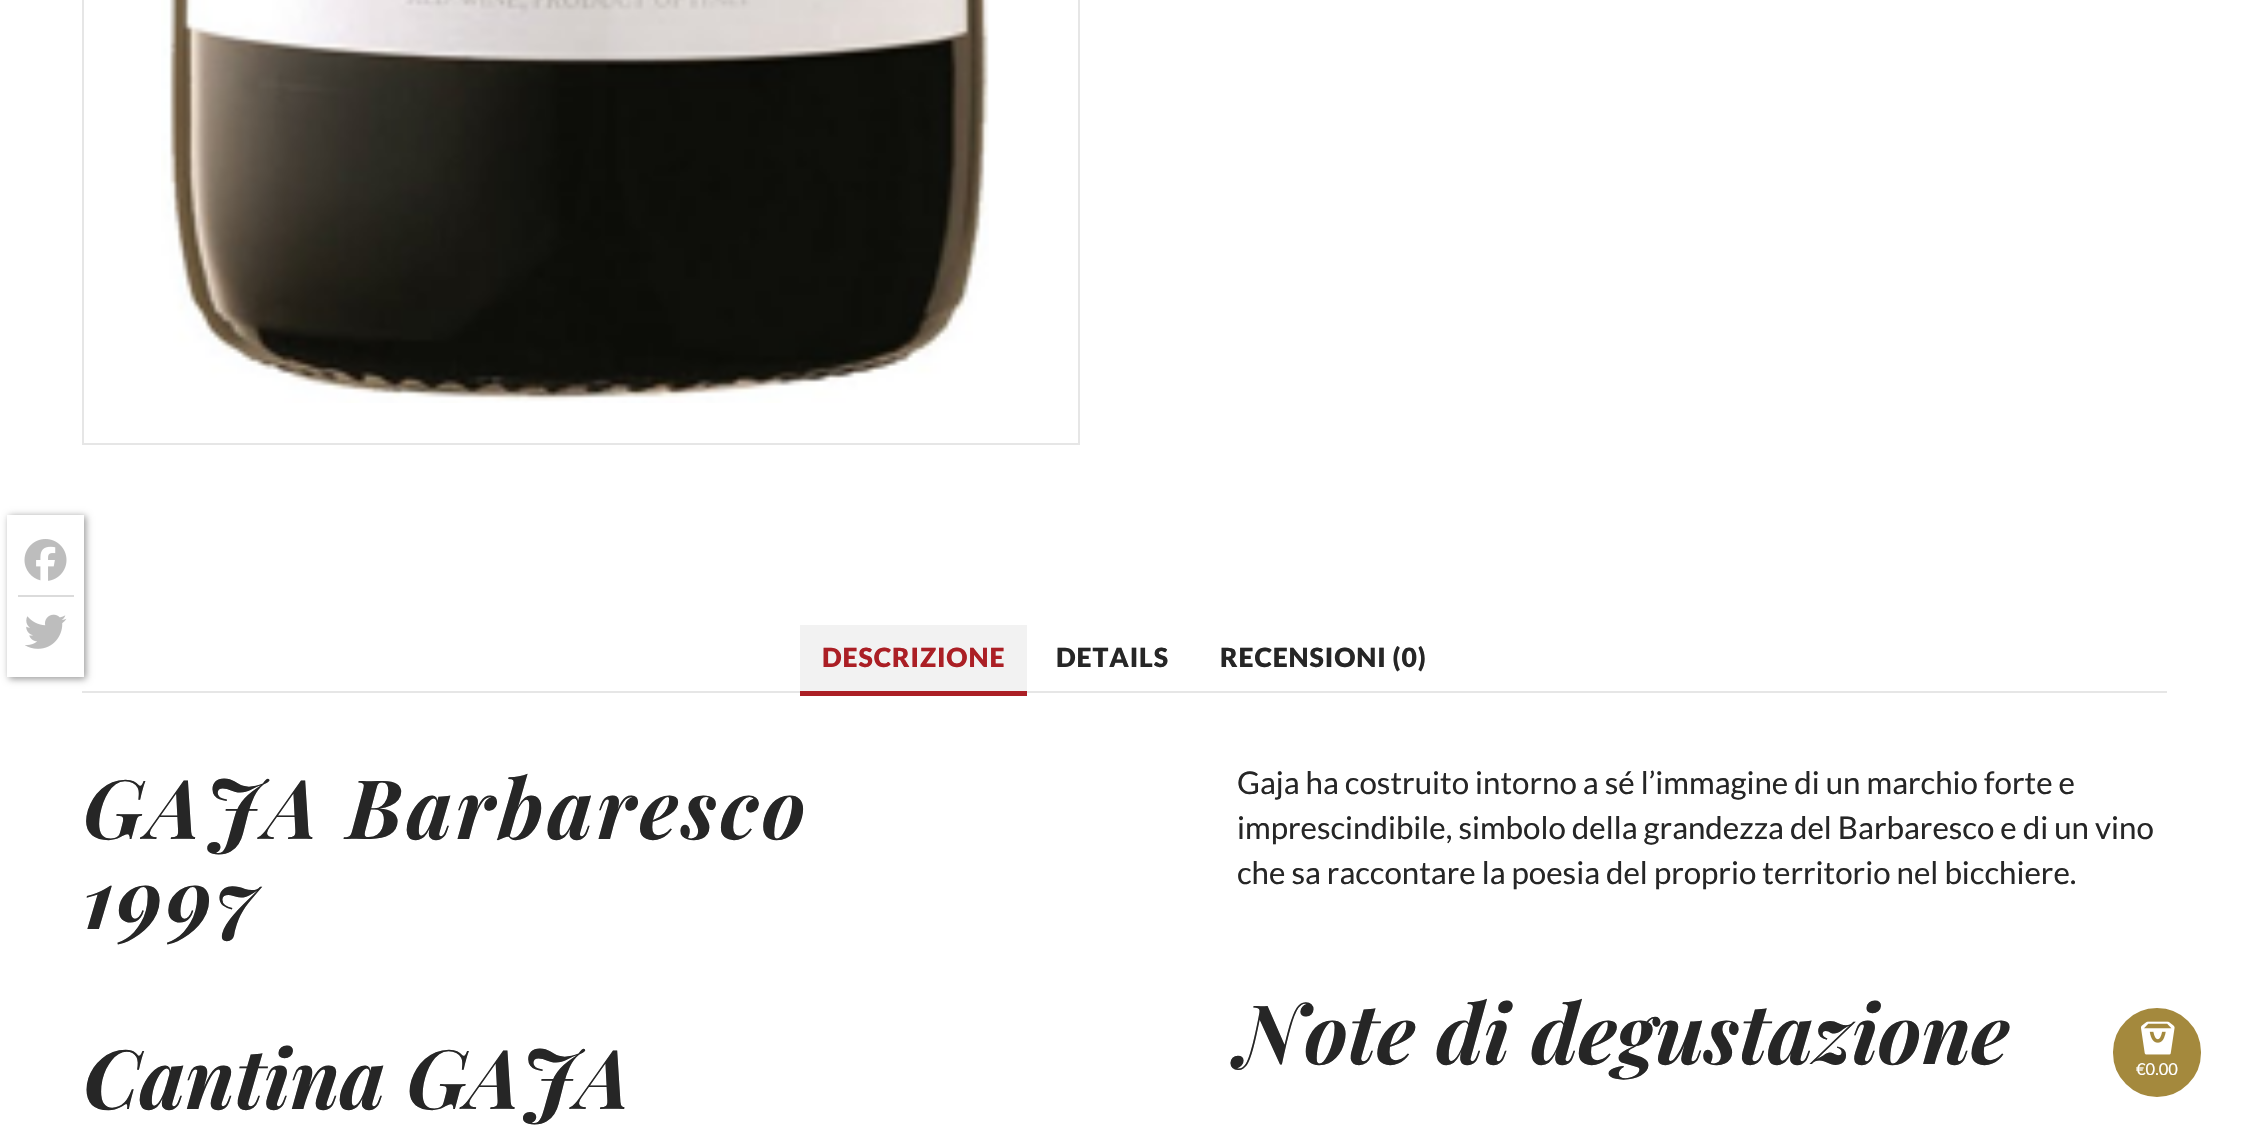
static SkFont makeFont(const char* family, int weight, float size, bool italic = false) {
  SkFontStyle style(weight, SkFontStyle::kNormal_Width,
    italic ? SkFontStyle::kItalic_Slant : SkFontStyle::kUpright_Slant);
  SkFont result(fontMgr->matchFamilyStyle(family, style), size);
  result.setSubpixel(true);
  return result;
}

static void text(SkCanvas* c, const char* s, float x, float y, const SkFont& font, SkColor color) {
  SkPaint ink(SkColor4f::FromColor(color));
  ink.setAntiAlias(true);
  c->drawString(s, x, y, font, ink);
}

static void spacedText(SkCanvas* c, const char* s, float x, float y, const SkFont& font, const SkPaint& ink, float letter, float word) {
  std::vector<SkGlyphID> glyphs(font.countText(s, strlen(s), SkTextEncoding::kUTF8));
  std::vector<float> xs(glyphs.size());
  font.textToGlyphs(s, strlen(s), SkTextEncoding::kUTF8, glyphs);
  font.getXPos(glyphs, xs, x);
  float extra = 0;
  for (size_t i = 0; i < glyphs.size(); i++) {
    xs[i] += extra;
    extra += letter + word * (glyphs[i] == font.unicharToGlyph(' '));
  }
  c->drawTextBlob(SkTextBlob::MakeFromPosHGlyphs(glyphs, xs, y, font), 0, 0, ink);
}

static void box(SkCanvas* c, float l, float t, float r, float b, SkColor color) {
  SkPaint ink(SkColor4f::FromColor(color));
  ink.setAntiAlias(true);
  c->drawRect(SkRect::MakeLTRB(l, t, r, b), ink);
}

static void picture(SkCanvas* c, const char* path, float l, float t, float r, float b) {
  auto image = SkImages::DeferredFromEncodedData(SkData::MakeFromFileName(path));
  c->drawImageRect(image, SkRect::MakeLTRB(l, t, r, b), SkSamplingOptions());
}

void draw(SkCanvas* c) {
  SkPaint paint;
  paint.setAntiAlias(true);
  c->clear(0xffffffff);
  c->save();
  c->clipPath(SkPathBuilder(SkPathFillType::kEvenOdd).moveTo(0, 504).lineTo(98, 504).lineTo(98, 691).lineTo(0, 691).close().moveTo(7, 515).lineTo(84, 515).lineTo(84, 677).lineTo(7, 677).close().detach(), true);
  paint.setColor(0x66000000);
  paint.setMaskFilter(SkMaskFilter::MakeBlur(kNormal_SkBlurStyle, 3.5f));
  c->drawRect(SkRect::MakeLTRB(9, 516, 86, 679), paint);
  paint.setMaskFilter(nullptr);
  c->restore();
  box(c, 18, 595, 74, 597, 0xffdbdbdb);
  picture(c, "img_01.png", 24, 539, 67, 581);
  picture(c, "img_02.png", 25, 614, 67, 649);
  paint.setStyle(SkPaint::kStroke_Style);
  paint.setStrokeWidth(2);
  paint.setColor(0xffe6e6e6);
  c->drawRect(SkRect::MakeLTRB(83, -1, 1079, 444), paint);
  picture(c, "img_03.png", 161, 0, 989, 403);
  box(c, 82, 691, 2167, 693, 0xffe6e6e6);
  box(c, 800, 691, 1027, 696, 0xffab1f25);
  box(c, 800, 625, 1027, 691, 0xfff2f2f2);
  SkFont face1 = makeFont("Lato", 900, 26.5f);
  paint.setStyle(SkPaint::kFill_Style);
  paint.setColor(0xffab1f25);
  spacedText(c, "DESCRIZIONE", 822, 667, face1, paint, 0.9f, 0);
  paint.setColor(0xff262626);
  spacedText(c, "DETAILS", 1056, 667, face1, paint, 0.9f, 0);
  spacedText(c, "RECENSIONI (0)", 1220, 667, face1, paint, 0.9f, 0);
  SkFont face2 = makeFont("Playfair Display", 700, 82, true);
  spacedText(c, "GAJA Barbaresco", 83, 839, face2, paint, 3.9f, 0);
  spacedText(c, "1997", 83, 929, face2, paint, 3.9f, 0);
  SkFont face3 = makeFont("Lato", 400, 31.25f);
  text(c, "Gaja ha costruito intorno a sé l’immagine di un marchio forte e", 1237, 794, face3, 0xff262626);
  text(c, "imprescindibile, simbolo della grandezza del Barbaresco e di un vino", 1237, 839, face3, 0xff262626);
  text(c, "che sa raccontare la poesia del proprio territorio nel bicchiere.", 1237, 884, face3, 0xff262626);
  text(c, "Cantina GAJA", 83, 1109, face2, 0xff262626);
  text(c, "Note di degustazione", 1237, 1064, face2, 0xff262626);
  paint.setColor(0xffa4893d);
  c->drawRoundRect(SkRect::MakeLTRB(2112, 1007, 2202, 1098), 45, 45, paint);
  paint.setStyle(SkPaint::kStroke_Style);
  paint.setColor(0xffffffff);
  c->drawRoundRect(SkRect::MakeLTRB(2112, 1007, 2202, 1098), 45, 45, paint);
  picture(c, "img_04.png", 2141, 1021, 2175, 1055);
  SkFont face4 = makeFont("Lato", 400, 16.5f);
  text(c, "€0.00", 2136, 1075, face4, 0xffffffff);
}
